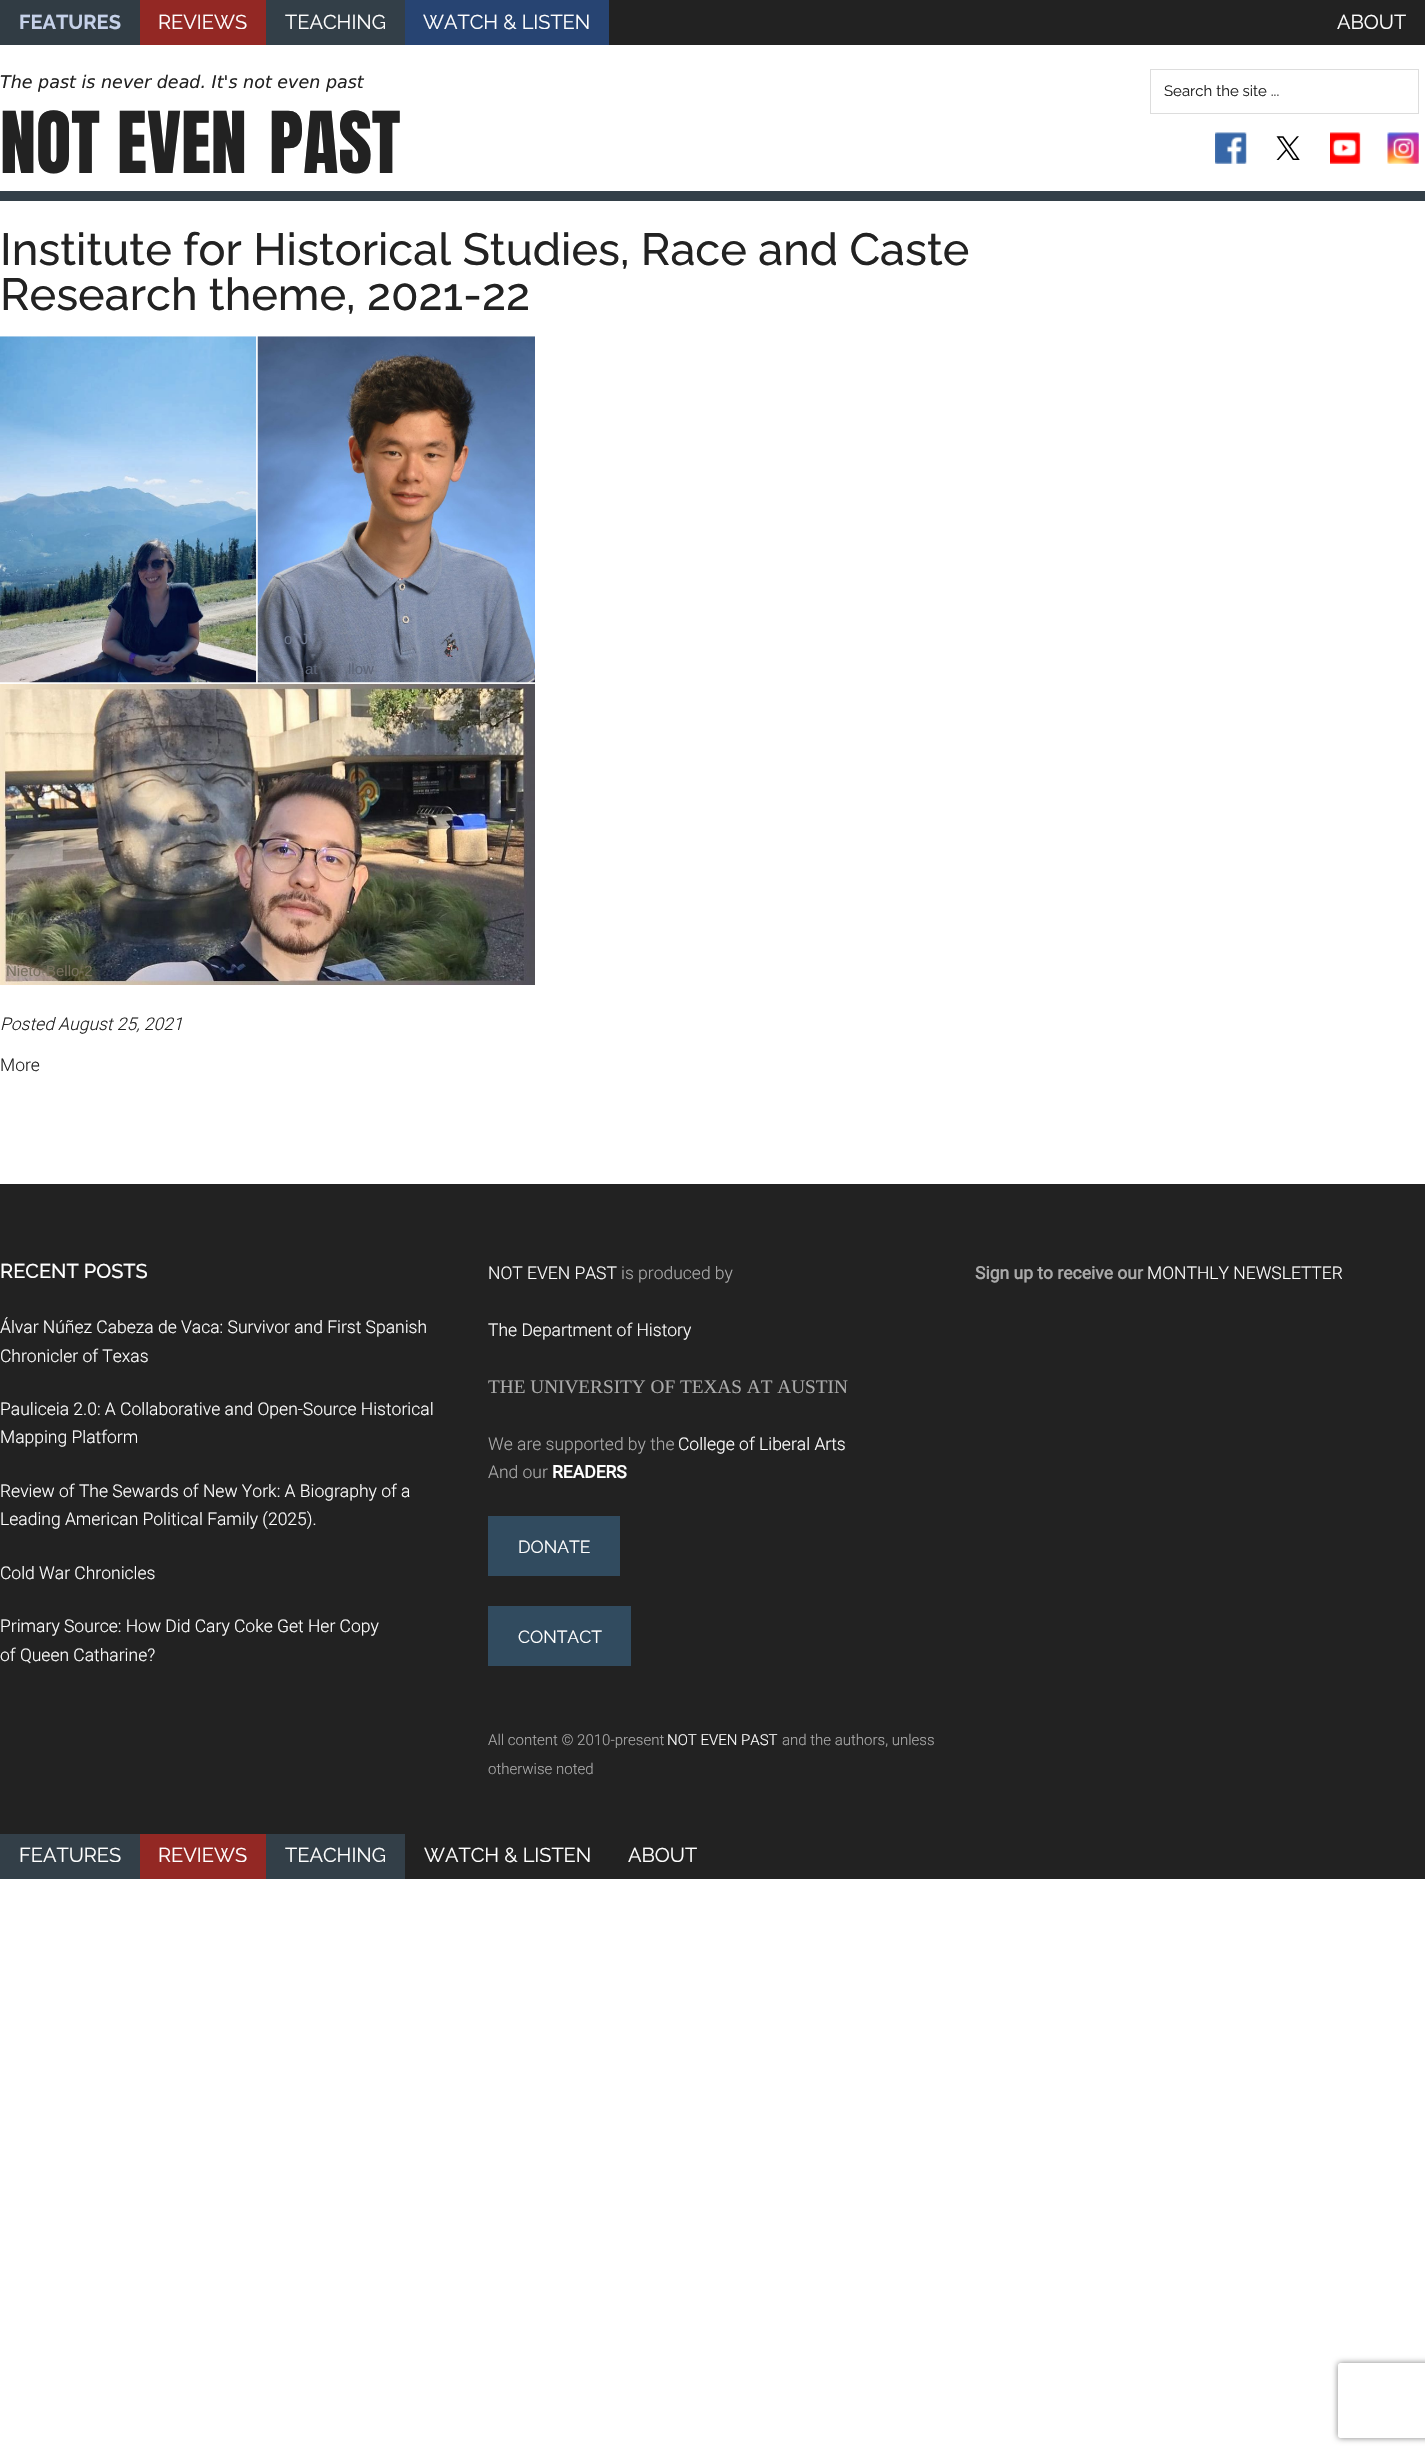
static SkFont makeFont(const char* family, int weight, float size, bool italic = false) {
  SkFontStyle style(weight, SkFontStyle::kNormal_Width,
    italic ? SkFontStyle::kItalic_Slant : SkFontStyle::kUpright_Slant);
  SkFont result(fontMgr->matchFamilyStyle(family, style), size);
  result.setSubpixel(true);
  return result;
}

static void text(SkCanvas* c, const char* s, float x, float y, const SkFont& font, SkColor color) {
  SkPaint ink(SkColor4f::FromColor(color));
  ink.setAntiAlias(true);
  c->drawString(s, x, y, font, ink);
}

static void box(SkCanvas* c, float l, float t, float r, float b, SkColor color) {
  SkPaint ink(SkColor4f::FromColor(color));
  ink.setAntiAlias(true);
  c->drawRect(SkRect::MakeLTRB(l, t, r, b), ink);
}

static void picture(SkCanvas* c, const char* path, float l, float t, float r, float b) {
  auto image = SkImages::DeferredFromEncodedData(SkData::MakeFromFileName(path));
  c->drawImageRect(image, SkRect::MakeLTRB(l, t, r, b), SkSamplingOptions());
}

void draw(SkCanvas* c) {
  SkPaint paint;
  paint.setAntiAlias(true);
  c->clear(0xffffffff);
  box(c, 609, 0, 1425, 45, 0xff222222);
  box(c, 0, 0, 140, 45, 0xff313c44);
  SkFont face1 = makeFont("Raleway", 700, 20);
  text(c, "FEATURES", 19, 29, face1, 0xffc5d1e9);
  box(c, 140, 0, 266, 45, 0xff932824);
  SkFont face2 = makeFont("Raleway", 400, 20);
  text(c, "REVIEWS", 158, 29, face2, 0xffffffff);
  box(c, 266, 0, 405, 45, 0xff333f48);
  text(c, "TEACHING", 285, 29, face2, 0xffffffff);
  box(c, 405, 0, 609, 45, 0xff274472);
  text(c, "WATCH & LISTEN", 423, 29, face2, 0xffffffff);
  text(c, "ABOUT", 1337, 29, face2, 0xffffffff);
  box(c, 0, 191, 1425, 201, 0xff333f48);
  SkFont face3 = makeFont("DejaVu Sans", 400, 17.5f, true);
  text(c, "The past is never dead. It's not even past", 0, 88, face3, 0xff222222);
  SkFont face4 = makeFont("Anton", 400, 72.5f);
  text(c, "NOT EVEN", 0, 173, face4, 0xff222222);
  text(c, "PAST", 269, 173, face4, 0xff222222);
  paint.setStyle(SkPaint::kStroke_Style);
  paint.setStrokeWidth(1);
  paint.setColor(0xffdddddd);
  c->drawRect(SkRect::MakeLTRB(1150.5f, 69.5f, 1418.5f, 113.5f), paint);
  SkFont face5 = makeFont("Raleway", 400, 15);
  text(c, "Search the site ...", 1164, 96, face5, 0xff222222);
  picture(c, "img_01.png", 1215, 132, 1247, 164);
  picture(c, "img_02.png", 1276, 136, 1300, 160);
  picture(c, "img_03.png", 1330, 132, 1361, 164);
  picture(c, "img_04.png", 1387, 132, 1419, 164);
  SkFont face6 = makeFont("Raleway", 500, 45);
  text(c, "Institute for Historical Studies, Race and Caste", 0, 265, face6, 0xff222222);
  text(c, "Research theme, 2021-22", 0, 310, face6, 0xff222222);
  picture(c, "img_05.png", 0, 336, 257, 683);
  picture(c, "img_06.png", 257, 336, 535, 683);
  SkFont face7 = makeFont("Liberation Sans", 400, 15);
  text(c, "o, J", 284, 644, face7, 0xff717b90);
  text(c, "-", 311, 659, face7, 0xff6d768a);
  text(c, "at", 305, 674, face7, 0xff5d6577);
  text(c, "llow", 348, 674, face7, 0xff5d6577);
  picture(c, "img_07.png", 0, 683, 535, 985);
  text(c, "Nieto-Bello-2", 6, 976, face7, 0xff77705f);
  SkFont face8 = makeFont("Roboto", 300, 17.5f, true);
  text(c, "Posted August 25, 2021", 0, 1030, face8, 0xff222222);
  SkFont face9 = makeFont("Roboto", 300, 17.5f);
  text(c, "More", 0, 1071, face9, 0xff222222);
  box(c, 0, 1184, 1425, 1834, 0xff222222);
  SkFont face10 = makeFont("Raleway", 500, 20);
  text(c, "RECENT POSTS", 0, 1278, face10, 0xffffffff);
  text(c, "Álvar Núñez Cabeza de Vaca: Survivor and First Spanish", 0, 1333, face9, 0xffffffff);
  text(c, "Chronicler of Texas", 0, 1362, face9, 0xffffffff);
  text(c, "Pauliceia 2.0: A Collaborative and Open-Source Historical", 0, 1415, face9, 0xffffffff);
  text(c, "Mapping Platform", 0, 1443, face9, 0xffffffff);
  text(c, "Review of The Sewards of New York: A Biography of a", 0, 1497, face9, 0xffffffff);
  text(c, "Leading American Political Family (2025).", 0, 1525, face9, 0xffffffff);
  text(c, "Cold War Chronicles", 0, 1579, face9, 0xffffffff);
  text(c, "Primary Source: How Did Cary Coke Get Her Copy", 0, 1632, face9, 0xffffffff);
  text(c, "of Queen Catharine?", 0, 1661, face9, 0xffffffff);
  text(c, "NOT EVEN PAST", 488, 1279, face9, 0xffffffff);
  text(c, "is produced by", 621, 1279, face9, 0xffaaaaaa);
  text(c, "The Department of History", 488, 1336, face9, 0xffffffff);
  SkFont face11 = makeFont("Liberation Serif", 400, 19.25f);
  text(c, "THE UNIVERSITY OF TEXAS AT AUSTIN", 488, 1393, face11, 0xffaaaaaa);
  text(c, "We are supported by the", 488, 1450, face9, 0xffaaaaaa);
  text(c, "College of Liberal Arts", 678, 1450, face9, 0xffffffff);
  text(c, "And our", 488, 1478, face9, 0xffaaaaaa);
  SkFont face12 = makeFont("Roboto", 700, 17.5f);
  text(c, "READERS", 552, 1478, face12, 0xffffffff);
  box(c, 488, 1516, 620, 1576, 0xff314b5f);
  SkFont face13 = makeFont("Raleway", 400, 17.5f);
  text(c, "DONATE", 518, 1553, face13, 0xffffffff);
  box(c, 488, 1606, 631, 1666, 0xff314b5f);
  text(c, "CONTACT", 518, 1643, face13, 0xffffffff);
  SkFont face14 = makeFont("Roboto", 300, 15);
  text(c, "All content © 2010-present", 488, 1745, face14, 0xffaaaaaa);
  text(c, "NOT EVEN PAST", 667, 1745, face14, 0xffffffff);
  text(c, "and the authors, unless", 782, 1745, face14, 0xffaaaaaa);
  text(c, "otherwise noted", 488, 1774, face14, 0xffaaaaaa);
  text(c, "Sign up to receive our", 975, 1279, face12, 0xffaaaaaa);
  text(c, "MONTHLY NEWSLETTER", 1147, 1279, face9, 0xffffffff);
  box(c, 405, 1834, 1425, 1879, 0xff222222);
  box(c, 0, 1834, 140, 1879, 0xff333f48);
  text(c, "FEATURES", 19, 1862, face2, 0xffffffff);
  box(c, 140, 1834, 266, 1879, 0xff932824);
  text(c, "REVIEWS", 158, 1862, face2, 0xffffffff);
  box(c, 266, 1834, 405, 1879, 0xff333f48);
  text(c, "TEACHING", 285, 1862, face2, 0xffffffff);
  text(c, "WATCH & LISTEN", 424, 1862, face2, 0xffffffff);
  text(c, "ABOUT", 628, 1862, face2, 0xffffffff);
  c->save();
  c->clipPath(SkPathBuilder(SkPathFillType::kEvenOdd).moveTo(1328, 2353).lineTo(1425, 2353).lineTo(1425, 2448).lineTo(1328, 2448).close().moveTo(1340.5f, 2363).lineTo(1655.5f, 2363).cubicTo(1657, 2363, 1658, 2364, 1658, 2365.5f).lineTo(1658, 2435.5f).cubicTo(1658, 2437, 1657, 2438, 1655.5f, 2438).lineTo(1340.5f, 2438).cubicTo(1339, 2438, 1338, 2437, 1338, 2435.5f).lineTo(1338, 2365.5f).cubicTo(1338, 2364, 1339, 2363, 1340.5f, 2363).close().detach(), true);
  paint.setStyle(SkPaint::kFill_Style);
  paint.setColor(0xff808080);
  paint.setMaskFilter(SkMaskFilter::MakeBlur(kNormal_SkBlurStyle, 3));
  c->drawRoundRect(SkRect::MakeLTRB(1338, 2363, 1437, 2438), 2.5f, 2.5f, paint);
  paint.setMaskFilter(nullptr);
  c->restore();
}
